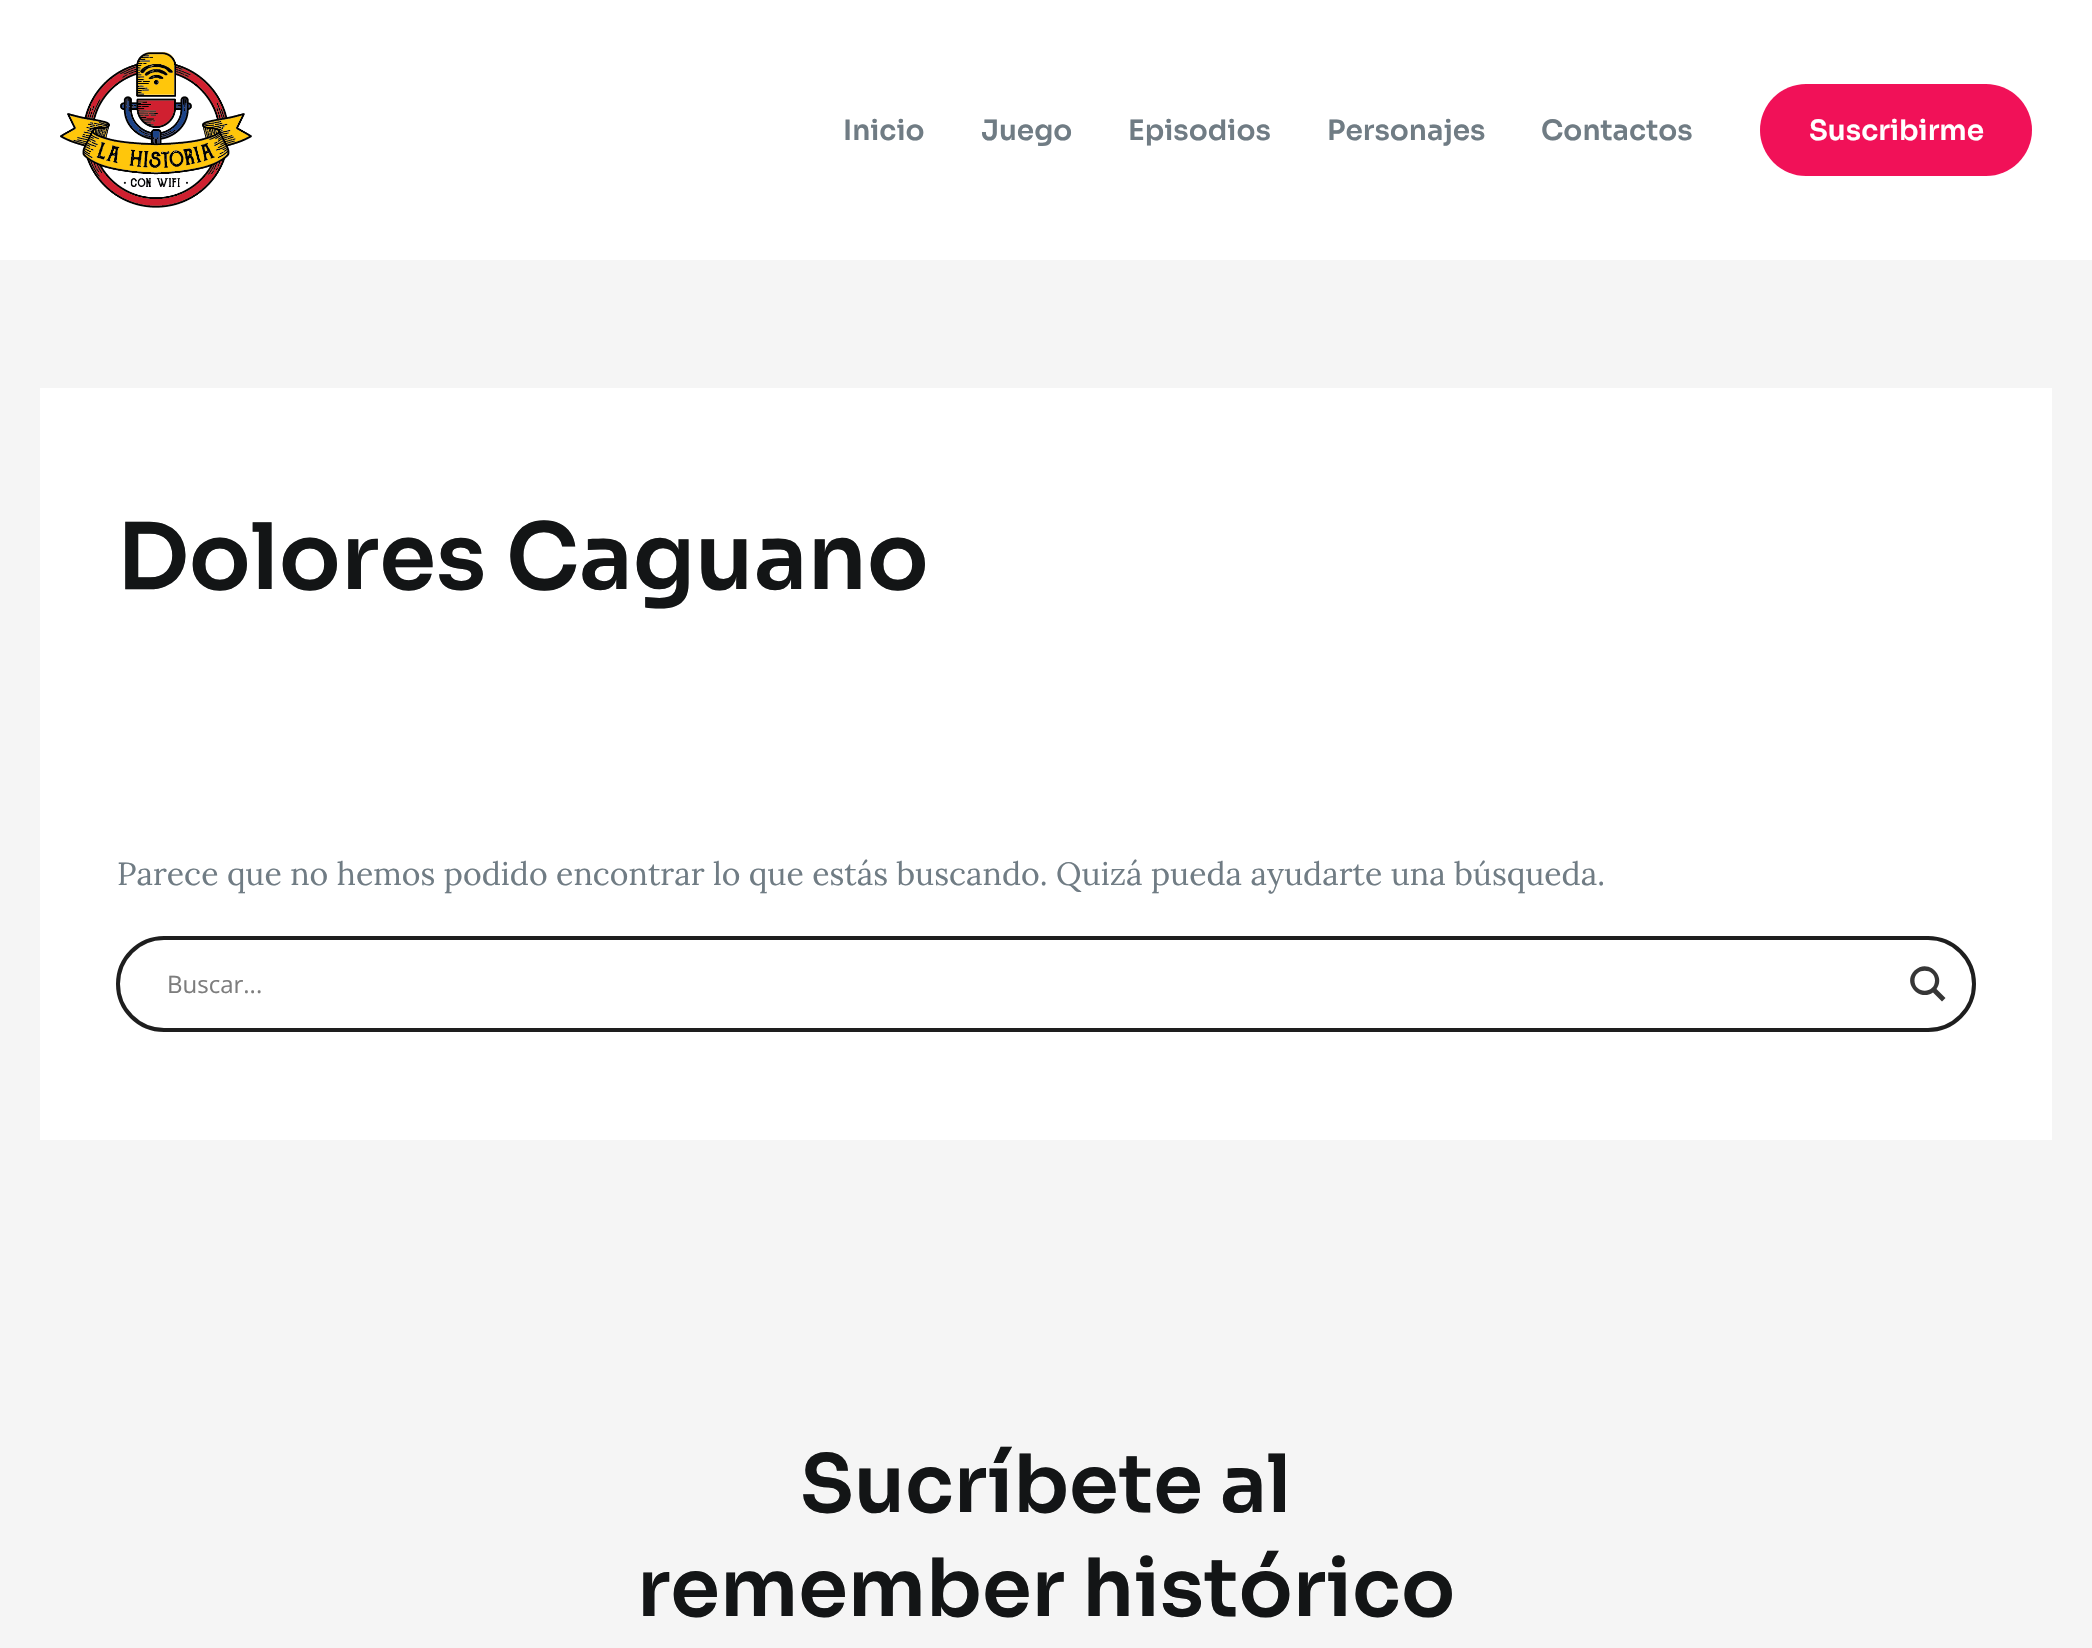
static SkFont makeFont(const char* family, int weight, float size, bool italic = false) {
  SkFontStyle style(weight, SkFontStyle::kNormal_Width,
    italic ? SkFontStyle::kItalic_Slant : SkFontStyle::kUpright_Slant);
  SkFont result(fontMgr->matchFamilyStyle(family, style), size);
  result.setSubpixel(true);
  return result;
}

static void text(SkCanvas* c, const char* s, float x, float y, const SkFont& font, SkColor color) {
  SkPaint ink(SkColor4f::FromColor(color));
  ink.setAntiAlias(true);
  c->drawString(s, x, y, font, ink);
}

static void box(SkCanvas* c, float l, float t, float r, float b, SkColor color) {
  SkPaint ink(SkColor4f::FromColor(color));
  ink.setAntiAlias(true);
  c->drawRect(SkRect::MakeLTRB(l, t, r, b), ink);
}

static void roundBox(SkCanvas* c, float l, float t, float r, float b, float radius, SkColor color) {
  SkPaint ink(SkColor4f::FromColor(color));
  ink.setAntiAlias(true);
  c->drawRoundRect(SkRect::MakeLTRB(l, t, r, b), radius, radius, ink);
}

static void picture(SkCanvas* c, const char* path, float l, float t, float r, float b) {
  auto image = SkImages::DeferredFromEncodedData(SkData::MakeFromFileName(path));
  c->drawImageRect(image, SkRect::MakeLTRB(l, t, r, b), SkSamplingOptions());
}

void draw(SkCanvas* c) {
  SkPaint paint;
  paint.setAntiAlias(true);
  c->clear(0xfff5f5f5);
  box(c, 0, 0, 2092, 260, 0xffffffff);
  picture(c, "img_01.png", 60, 52, 252, 208);
  SkFont face1 = makeFont("Sora", 600, 28);
  text(c, "Inicio", 843, 140, face1, 0xff707c84);
  text(c, "Juego", 981, 140, face1, 0xff707c84);
  text(c, "Episodios", 1128, 140, face1, 0xff707c84);
  text(c, "Personajes", 1327, 140, face1, 0xff707c84);
  text(c, "Contactos", 1541, 140, face1, 0xff707c84);
  roundBox(c, 1760, 84, 2032, 176, 46, 0xfff11158);
  text(c, "Suscribirme", 1809, 140, face1, 0xffffffff);
  box(c, 40, 388, 2052, 1140, 0xffffffff);
  SkFont face2 = makeFont("Sora", 600, 91.5f);
  text(c, "Dolores Caguano", 117, 589, face2, 0xff131516);
  SkFont face3 = makeFont("Lora", 400, 32);
  text(c, "Parece que no hemos podido encontrar lo que estás buscando. Quizá pueda ayudarte una búsqueda.", 117, 885, face3, 0xff707c84);
  paint.setStyle(SkPaint::kStroke_Style);
  paint.setStrokeWidth(4);
  paint.setColor(0xff1e1e1e);
  c->drawRoundRect(SkRect::MakeLTRB(118, 938, 1974, 1030), 46, 46, paint);
  SkFont face4 = makeFont("Open Sans", 400, 24);
  text(c, "Buscar...", 167, 993, face4, 0xff7d7d7d);
  paint.setStyle(SkPaint::kFill_Style);
  paint.setColor(0xff363636);
  c->drawPath(SkPathBuilder().moveTo(1945.5f, 998).lineTo(1936.5f, 989).cubicTo(1946.5f, 975, 1927.5f, 958, 1914.5f, 970.5f).cubicTo(1902, 983, 1919, 1002, 1933, 992.5f).lineTo(1942, 1001.5f).close().moveTo(1914.5f, 980.5f).cubicTo(1914.5f, 967.5f, 1935, 967.5f, 1935, 980.5f).cubicTo(1935, 994, 1914.5f, 994, 1914.5f, 980.5f).close().detach(), paint);
  SkFont face5 = makeFont("Sora", 600, 80);
  text(c, "Sucríbete al", 800, 1512, face5, 0xff131516);
  text(c, "remember histórico", 637, 1616, face5, 0xff131516);
}
